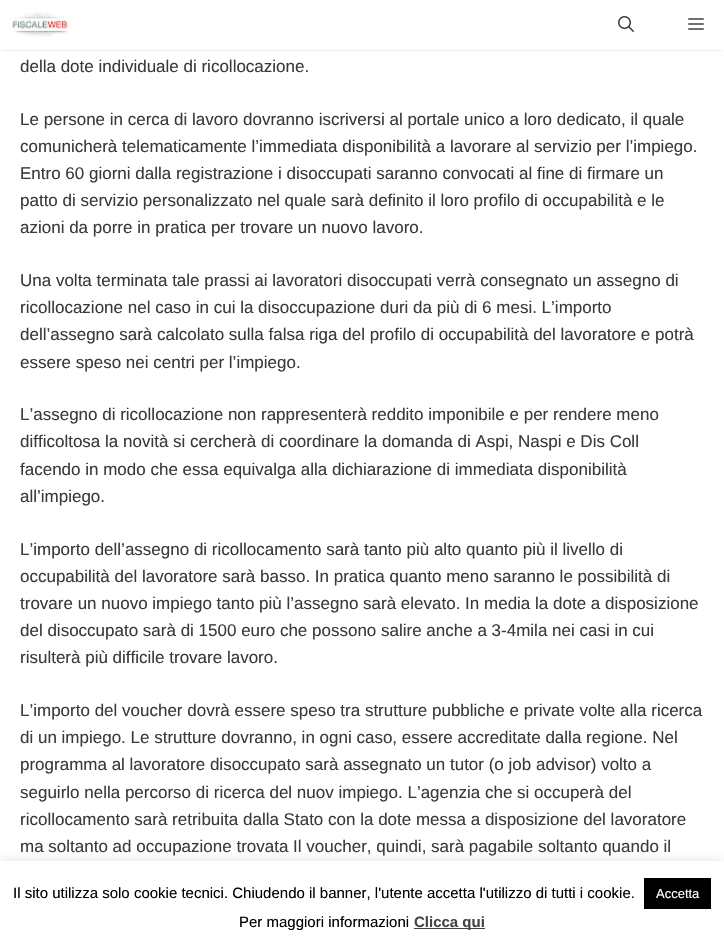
static SkFont makeFont(const char* family, int weight, float size, bool italic = false) {
  SkFontStyle style(weight, SkFontStyle::kNormal_Width,
    italic ? SkFontStyle::kItalic_Slant : SkFontStyle::kUpright_Slant);
  SkFont result(fontMgr->matchFamilyStyle(family, style), size);
  result.setSubpixel(true);
  return result;
}

static void text(SkCanvas* c, const char* s, float x, float y, const SkFont& font, SkColor color) {
  SkPaint ink(SkColor4f::FromColor(color));
  ink.setAntiAlias(true);
  c->drawString(s, x, y, font, ink);
}

static void box(SkCanvas* c, float l, float t, float r, float b, SkColor color) {
  SkPaint ink(SkColor4f::FromColor(color));
  ink.setAntiAlias(true);
  c->drawRect(SkRect::MakeLTRB(l, t, r, b), ink);
}

static void picture(SkCanvas* c, const char* path, float l, float t, float r, float b) {
  auto image = SkImages::DeferredFromEncodedData(SkData::MakeFromFileName(path));
  c->drawImageRect(image, SkRect::MakeLTRB(l, t, r, b), SkSamplingOptions());
}

void draw(SkCanvas* c) {
  SkPaint paint;
  paint.setAntiAlias(true);
  c->clear(0xffffffff);
  paint.setColor(0x33000000);
  paint.setMaskFilter(SkMaskFilter::MakeBlur(kNormal_SkBlurStyle, 1));
  c->drawRect(SkRect::MakeLTRB(2, 4, 722, 50), paint);
  paint.setMaskFilter(nullptr);
  box(c, 0, 2, 724, 50, 0xffffffff);
  picture(c, "img_01.png", 11, 12, 68, 37);
  picture(c, "img_02.png", 618, 16, 634, 32);
  picture(c, "img_03.png", 688, 18, 704, 30);
  SkFont face1 = makeFont("Liberation Sans", 400, 17);
  text(c, "della dote individuale di ricollocazione.", 20, 72, face1, 0xff3a3a3a);
  text(c, "Le persone in cerca di lavoro dovranno iscriversi al portale unico a loro dedicato, il quale", 20, 125, face1, 0xff3a3a3a);
  text(c, "comunicherà telematicamente l’immediata disponibilità a lavorare al servizio per l’impiego.", 20, 152, face1, 0xff3a3a3a);
  text(c, "Entro 60 giorni dalla registrazione i disoccupati saranno convocati al fine di firmare un", 20, 179, face1, 0xff3a3a3a);
  text(c, "patto di servizio personalizzato nel quale sarà definito il loro profilo di occupabilità e le", 20, 206, face1, 0xff3a3a3a);
  text(c, "azioni da porre in pratica per trovare un nuovo lavoro.", 20, 233, face1, 0xff3a3a3a);
  text(c, "Una volta terminata tale prassi ai lavoratori disoccupati verrà consegnato un assegno di", 20, 286, face1, 0xff3a3a3a);
  text(c, "ricollocazione nel caso in cui la disoccupazione duri da più di 6 mesi. L’importo", 20, 313, face1, 0xff3a3a3a);
  text(c, "dell’assegno sarà calcolato sulla falsa riga del profilo di occupabilità del lavoratore e potrà", 20, 340, face1, 0xff3a3a3a);
  text(c, "essere speso nei centri per l’impiego.", 20, 368, face1, 0xff3a3a3a);
  text(c, "L’assegno di ricollocazione non rappresenterà reddito imponibile e per rendere meno", 20, 420, face1, 0xff3a3a3a);
  text(c, "difficoltosa la novità si cercherà di coordinare la domanda di Aspi, Naspi e Dis Coll", 20, 447, face1, 0xff3a3a3a);
  text(c, "facendo in modo che essa equivalga alla dichiarazione di immediata disponibilità", 20, 475, face1, 0xff3a3a3a);
  text(c, "all’impiego.", 20, 502, face1, 0xff3a3a3a);
  text(c, "L’importo dell’assegno di ricollocamento sarà tanto più alto quanto più il livello di", 20, 555, face1, 0xff3a3a3a);
  text(c, "occupabilità del lavoratore sarà basso. In pratica quanto meno saranno le possibilità di", 20, 582, face1, 0xff3a3a3a);
  text(c, "trovare un nuovo impiego tanto più l’assegno sarà elevato. In media la dote a disposizione", 20, 609, face1, 0xff3a3a3a);
  text(c, "del disoccupato sarà di 1500 euro che possono salire anche a 3-4mila nei casi in cui", 20, 636, face1, 0xff3a3a3a);
  text(c, "risulterà più difficile trovare lavoro.", 20, 663, face1, 0xff3a3a3a);
  text(c, "L’importo del voucher dovrà essere speso tra strutture pubbliche e private volte alla ricerca", 20, 716, face1, 0xff3a3a3a);
  text(c, "di un impiego. Le strutture dovranno, in ogni caso, essere accreditate dalla regione. Nel", 20, 743, face1, 0xff3a3a3a);
  text(c, "programma al lavoratore disoccupato sarà assegnato un tutor (o job advisor) volto a", 20, 770, face1, 0xff3a3a3a);
  text(c, "seguirlo nella percorso di ricerca del nuov impiego. L’agenzia che si occuperà del", 20, 798, face1, 0xff3a3a3a);
  text(c, "ricollocamento sarà retribuita dalla Stato con la dote messa a disposizione del lavoratore", 20, 825, face1, 0xff3a3a3a);
  text(c, "ma soltanto ad occupazione trovata Il voucher, quindi, sarà pagabile soltanto quando il", 20, 852, face1, 0xff3a3a3a);
  paint.setColor(0x4dacabab);
  paint.setMaskFilter(SkMaskFilter::MakeBlur(kNormal_SkBlurStyle, 5));
  c->drawRect(SkRect::MakeLTRB(0, 860, 724, 945), paint);
  paint.setMaskFilter(nullptr);
  box(c, 0, 861, 724, 946, 0xffffffff);
  SkFont face2 = makeFont("Liberation Sans", 400, 15);
  text(c, "Il sito utilizza solo cookie tecnici. Chiudendo il banner, l'utente accetta l'utilizzo di tutti i cookie.", 13, 898, face2, 0xff000000);
  box(c, 644, 878, 711, 909, 0xff000000);
  SkFont face3 = makeFont("Liberation Sans", 400, 13);
  text(c, "Accetta", 656, 898, face3, 0xffffffff);
  text(c, "Per maggiori informazioni", 239, 927, face2, 0xff000000);
  box(c, 414, 928, 485, 929, 0xff444444);
  SkFont face4 = makeFont("Liberation Sans", 700, 15);
  text(c, "Clicca qui", 414, 927, face4, 0xff444444);
}
